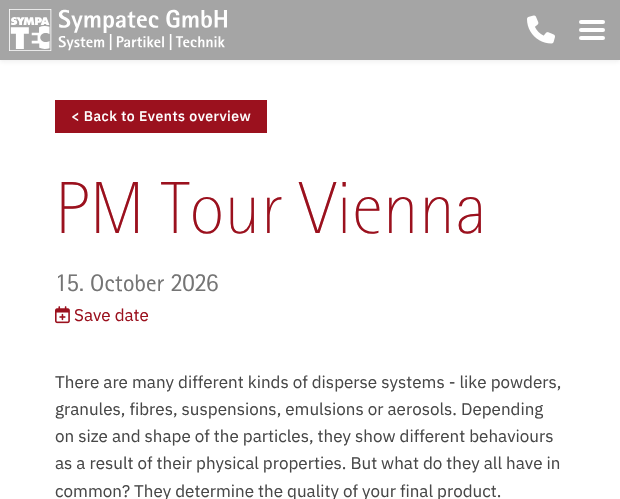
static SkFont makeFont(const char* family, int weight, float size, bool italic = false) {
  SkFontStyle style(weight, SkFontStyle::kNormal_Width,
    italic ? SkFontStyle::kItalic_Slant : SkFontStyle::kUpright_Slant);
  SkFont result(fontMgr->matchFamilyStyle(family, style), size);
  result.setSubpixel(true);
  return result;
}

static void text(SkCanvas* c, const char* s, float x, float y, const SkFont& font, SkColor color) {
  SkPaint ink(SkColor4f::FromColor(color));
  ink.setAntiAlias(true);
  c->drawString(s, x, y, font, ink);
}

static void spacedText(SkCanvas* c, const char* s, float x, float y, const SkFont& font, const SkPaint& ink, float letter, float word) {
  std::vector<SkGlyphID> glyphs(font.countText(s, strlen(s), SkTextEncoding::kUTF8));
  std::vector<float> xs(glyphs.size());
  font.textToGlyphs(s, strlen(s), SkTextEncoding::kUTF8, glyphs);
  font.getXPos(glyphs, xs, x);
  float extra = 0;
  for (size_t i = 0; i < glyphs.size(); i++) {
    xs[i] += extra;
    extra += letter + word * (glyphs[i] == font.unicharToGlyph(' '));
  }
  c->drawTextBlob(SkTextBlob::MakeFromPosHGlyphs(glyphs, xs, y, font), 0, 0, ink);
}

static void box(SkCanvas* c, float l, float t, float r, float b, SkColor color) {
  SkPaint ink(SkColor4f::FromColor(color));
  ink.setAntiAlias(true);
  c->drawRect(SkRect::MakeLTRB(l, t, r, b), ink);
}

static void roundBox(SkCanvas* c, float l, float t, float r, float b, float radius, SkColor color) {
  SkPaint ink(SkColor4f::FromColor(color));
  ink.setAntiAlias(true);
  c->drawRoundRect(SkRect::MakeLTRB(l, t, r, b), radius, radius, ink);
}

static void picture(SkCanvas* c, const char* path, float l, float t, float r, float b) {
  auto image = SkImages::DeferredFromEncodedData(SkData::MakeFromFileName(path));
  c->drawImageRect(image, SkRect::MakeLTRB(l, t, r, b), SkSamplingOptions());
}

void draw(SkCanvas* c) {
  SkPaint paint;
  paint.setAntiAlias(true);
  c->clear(0xffffffff);
  paint.setColor(0x80e1e1e1);
  paint.setMaskFilter(SkMaskFilter::MakeBlur(kNormal_SkBlurStyle, 2));
  c->drawRect(SkRect::MakeLTRB(0, 2, 620, 62), paint);
  paint.setMaskFilter(nullptr);
  box(c, 0, 0, 620, 60, 0xffa5a5a5);
  picture(c, "img_01.png", 9, 9, 227, 51);
  picture(c, "img_02.png", 527, 15, 555, 44);
  roundBox(c, 579, 36, 605, 40, 2, 0xffffffff);
  roundBox(c, 579, 20, 605, 24, 2, 0xffffffff);
  roundBox(c, 579, 28, 605, 32, 2, 0xffffffff);
  box(c, 55, 100, 267, 133, 0xff9b111e);
  SkFont face1 = makeFont("IBM Plex Sans", 500, 14);
  paint.setColor(0xffffffff);
  spacedText(c, "< Back to Events overview", 71, 121, face1, paint, 0.5f, 0);
  SkFont face2 = makeFont("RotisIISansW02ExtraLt", 400, 74);
  text(c, "PM Tour Vienna", 55, 233, face2, 0xff9b111e);
  SkFont face3 = makeFont("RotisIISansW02", 400, 24);
  text(c, "15. October 2026", 55, 291, face3, 0xff757575);
  picture(c, "img_03.png", 55, 306, 70, 324);
  SkFont face4 = makeFont("IBM Plex Sans", 400, 17);
  text(c, "Save date", 74, 321, face4, 0xff9b111e);
  text(c, "There are many different kinds of disperse systems - like powders,", 55, 388, face4, 0xff484848);
  text(c, "granules, fibres, suspensions, emulsions or aerosols. Depending", 55, 415, face4, 0xff484848);
  text(c, "on size and shape of the particles, they show different behaviours", 55, 442, face4, 0xff484848);
  text(c, "as a result of their physical properties. But what do they all have in", 55, 469, face4, 0xff484848);
  text(c, "common? They determine the quality of your final product.", 55, 497, face4, 0xff484848);
}
